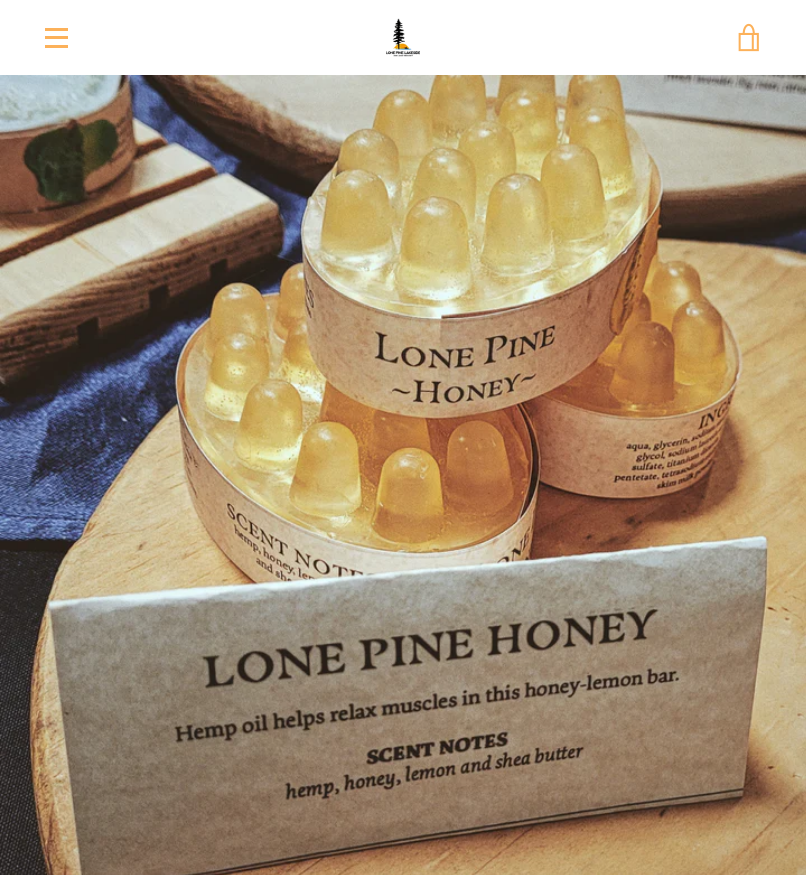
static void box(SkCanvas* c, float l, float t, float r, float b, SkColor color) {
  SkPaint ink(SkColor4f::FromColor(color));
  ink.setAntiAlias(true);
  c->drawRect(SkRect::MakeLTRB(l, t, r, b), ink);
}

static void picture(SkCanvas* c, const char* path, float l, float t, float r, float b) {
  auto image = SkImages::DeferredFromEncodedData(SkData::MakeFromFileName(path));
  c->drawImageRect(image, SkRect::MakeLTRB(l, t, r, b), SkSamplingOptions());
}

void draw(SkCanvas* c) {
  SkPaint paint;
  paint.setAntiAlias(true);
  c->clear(0xffffffff);
  box(c, 45, 28, 68, 31, 0xfffcb15a);
  box(c, 45, 36, 68, 39, 0xfffcb15a);
  box(c, 45, 45, 68, 48, 0xfffcb15a);
  picture(c, "img_01.png", 386, 18, 420, 57);
  picture(c, "img_02.png", 738, 23, 759, 52);
  picture(c, "img_03.png", 0, 75, 806, 875);
}
